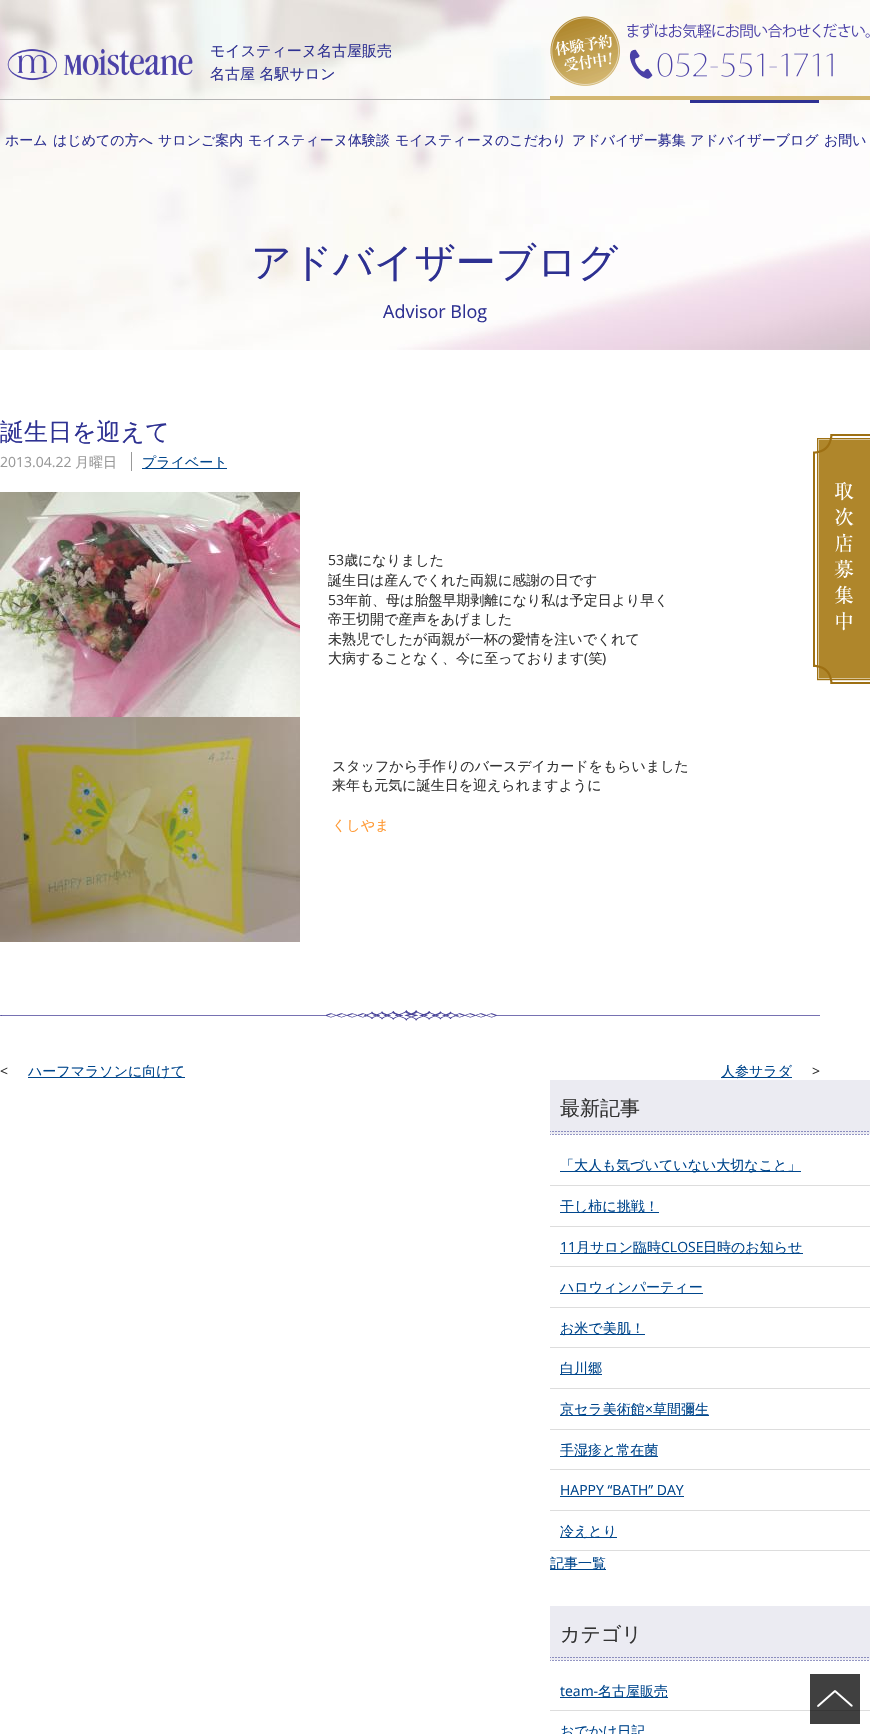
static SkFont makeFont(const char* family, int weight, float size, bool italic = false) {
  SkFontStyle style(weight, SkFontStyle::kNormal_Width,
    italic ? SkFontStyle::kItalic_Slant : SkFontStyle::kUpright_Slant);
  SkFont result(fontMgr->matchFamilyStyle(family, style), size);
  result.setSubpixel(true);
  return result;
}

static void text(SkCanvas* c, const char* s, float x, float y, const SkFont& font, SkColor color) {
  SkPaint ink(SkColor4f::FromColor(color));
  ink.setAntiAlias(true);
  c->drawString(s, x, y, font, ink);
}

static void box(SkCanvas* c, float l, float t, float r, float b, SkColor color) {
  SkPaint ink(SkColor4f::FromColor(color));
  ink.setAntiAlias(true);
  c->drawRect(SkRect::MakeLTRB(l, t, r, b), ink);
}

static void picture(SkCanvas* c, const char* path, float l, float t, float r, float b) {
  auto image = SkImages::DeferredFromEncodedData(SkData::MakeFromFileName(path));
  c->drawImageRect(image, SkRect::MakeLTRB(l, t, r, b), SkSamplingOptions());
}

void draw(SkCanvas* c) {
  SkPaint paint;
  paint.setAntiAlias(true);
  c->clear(0xffffffff);
  box(c, 810, 1674, 860, 1724, 0xff404040);
  picture(c, "img_01.png", 0, 0, 870, 350);
  box(c, 0, 99, 550, 100, 0xffb3b3b3);
  picture(c, "img_02.png", 7, 48, 193, 81);
  SkFont face1 = makeFont("WenQuanYi Zen Hei", 500, 15);
  text(c, "モイスティーヌ名古屋販売", 210, 56, face1, 0xff2e3192);
  text(c, "名古屋 名駅サロン", 210, 79, face1, 0xff2e3192);
  box(c, 550, 96, 870, 100, 0xffd3b771);
  picture(c, "img_03.png", 550, 16, 870, 86);
  SkFont face2 = makeFont("WenQuanYi Zen Hei", 500, 14);
  text(c, "ホーム", 5, 145, face2, 0xff2e3192);
  text(c, "はじめての方へ", 53, 145, face2, 0xff2e3192);
  text(c, "サロンご案内", 158, 145, face2, 0xff2e3192);
  text(c, "モイスティーヌ体験談", 248, 145, face2, 0xff2e3192);
  text(c, "モイスティーヌのこだわり", 395, 145, face2, 0xff2e3192);
  text(c, "アドバイザー募集", 572, 145, face2, 0xff2e3192);
  box(c, 690, 100, 819, 103, 0xff2e3192);
  text(c, "アドバイザーブログ", 690, 145, face2, 0xff2e3192);
  text(c, "お問い", 824, 145, face2, 0xff2e3192);
  SkFont face3 = makeFont("WenQuanYi Zen Hei", 500, 40);
  text(c, "アドバイザーブログ", 251, 276, face3, 0xff2e3192);
  SkFont face4 = makeFont("Open Sans", 400, 18);
  text(c, "Advisor Blog", 383, 318, face4, 0xff2e3192);
  picture(c, "img_04.png", 0, 1010, 820, 1021);
  SkFont face5 = makeFont("WenQuanYi Zen Hei", 500, 24);
  text(c, "誕生日を迎えて", 0, 440, face5, 0xff2e3192);
  SkFont face6 = makeFont("Open Sans", 400, 14);
  text(c, "2013.04.22", 0, 467, face6, 0xff999999);
  text(c, "月曜日", 75, 467, face2, 0xff999999);
  box(c, 142, 468, 227, 469, 0xff00468c);
  text(c, "プライベート", 142, 467, face2, 0xff00468c);
  box(c, 131, 452, 132, 471, 0xff999999);
  picture(c, "img_05.png", 0, 492, 300, 717);
  text(c, "53", 328, 565, face6, 0xff333333);
  text(c, "歳になりました", 344, 565, face2, 0xff333333);
  text(c, "誕生日は産んでくれた両親に感謝の日です", 328, 585, face2, 0xff333333);
  text(c, "53", 328, 605, face6, 0xff333333);
  text(c, "年前、母は胎盤早期剥離になり私は予定日より早く", 344, 605, face2, 0xff333333);
  text(c, "帝王切開で産声をあげました", 328, 624, face2, 0xff333333);
  text(c, "未熟児でしたが両親が一杯の愛情を注いでくれて", 328, 644, face2, 0xff333333);
  text(c, "大病することなく、今に至っております 笑", 328, 663, face2, 0xff333333);
  text(c, "(", 584, 663, face6, 0xff333333);
  text(c, ")", 602, 663, face6, 0xff333333);
  picture(c, "img_06.png", 0, 717, 300, 942);
  text(c, "スタッフから手作りのバースデイカードをもらいました", 332, 771, face2, 0xff333333);
  text(c, "来年も元気に誕生日を迎えられますように", 332, 790, face2, 0xff333333);
  text(c, "くしやま", 332, 830, face2, 0xffff9933);
  text(c, "<", 0, 1076, face6, 0xff333333);
  box(c, 28, 1077, 185, 1078, 0xff00468c);
  text(c, "ハーフマラソンに向けて", 28, 1076, face2, 0xff00468c);
  box(c, 721, 1077, 792, 1078, 0xff00468c);
  text(c, "人参サラダ", 721, 1076, face2, 0xff00468c);
  text(c, ">", 812, 1076, face6, 0xff333333);
  picture(c, "img_07.png", 550, 1080, 870, 1135);
  SkFont face7 = makeFont("WenQuanYi Zen Hei", 500, 20);
  text(c, "最新記事", 560, 1115, face7, 0xff333333);
  box(c, 550, 1185, 870, 1186, 0xffdddddd);
  box(c, 560, 1171, 801, 1172, 0xff00468c);
  text(c, "「大人も気づいていない大切なこと」", 560, 1170, face2, 0xff00468c);
  box(c, 550, 1226, 870, 1227, 0xffdddddd);
  box(c, 560, 1212, 659, 1213, 0xff00468c);
  text(c, "干し柿に挑戦！", 560, 1211, face2, 0xff00468c);
  box(c, 550, 1266, 870, 1267, 0xffdddddd);
  text(c, "11", 560, 1252, face6, 0xff00468c);
  box(c, 560, 1253, 803, 1254, 0xff00468c);
  text(c, "月サロン臨時", 576, 1252, face2, 0xff00468c);
  text(c, "CLOSE", 661, 1252, face6, 0xff00468c);
  text(c, "日時のお知らせ", 703, 1252, face2, 0xff00468c);
  box(c, 550, 1307, 870, 1308, 0xffdddddd);
  box(c, 560, 1293, 703, 1294, 0xff00468c);
  text(c, "ハロウィンパーティー", 560, 1292, face2, 0xff00468c);
  box(c, 550, 1347, 870, 1348, 0xffdddddd);
  box(c, 560, 1334, 645, 1335, 0xff00468c);
  text(c, "お米で美肌！", 560, 1333, face2, 0xff00468c);
  box(c, 550, 1388, 870, 1389, 0xffdddddd);
  box(c, 560, 1374, 602, 1375, 0xff00468c);
  text(c, "白川郷", 560, 1373, face2, 0xff00468c);
  box(c, 550, 1429, 870, 1430, 0xffdddddd);
  box(c, 560, 1415, 709, 1416, 0xff00468c);
  text(c, "京セラ美術館", 560, 1414, face2, 0xff00468c);
  text(c, "×", 645, 1414, face6, 0xff00468c);
  text(c, "草間彌生", 653, 1414, face2, 0xff00468c);
  box(c, 550, 1469, 870, 1470, 0xffdddddd);
  box(c, 560, 1456, 658, 1457, 0xff00468c);
  text(c, "手湿疹と常在菌", 560, 1455, face2, 0xff00468c);
  box(c, 550, 1510, 870, 1511, 0xffdddddd);
  text(c, "HAPPY “BATH” DAY", 560, 1495, face6, 0xff00468c);
  box(c, 560, 1496, 684, 1497, 0xff00468c);
  box(c, 550, 1550, 870, 1551, 0xffdddddd);
  box(c, 560, 1537, 617, 1538, 0xff00468c);
  text(c, "冷えとり", 560, 1536, face2, 0xff00468c);
  box(c, 550, 1569, 606, 1570, 0xff00468c);
  text(c, "記事一覧", 550, 1568, face2, 0xff00468c);
  picture(c, "img_07.png", 550, 1606, 870, 1661);
  text(c, "カテゴリ", 560, 1641, face7, 0xff333333);
  box(c, 550, 1710, 870, 1711, 0xffdddddd);
  box(c, 810, 1710, 860, 1711, 0xff373737);
  text(c, "team-", 560, 1696, face6, 0xff00468c);
  box(c, 560, 1697, 668, 1698, 0xff00468c);
  text(c, "名古屋販売", 598, 1696, face2, 0xff00468c);
  text(c, "おでかけ日記", 560, 1736, face2, 0xff00468c);
  picture(c, "img_08.png", 813, 434, 870, 684);
  picture(c, "img_09.png", 817, 1690, 853, 1707);
}
